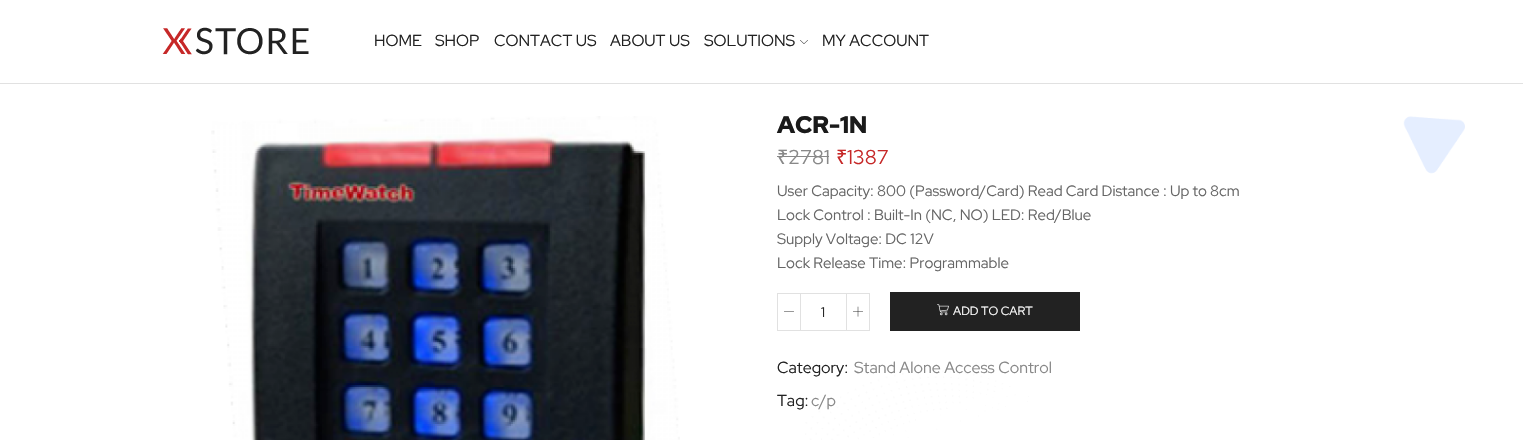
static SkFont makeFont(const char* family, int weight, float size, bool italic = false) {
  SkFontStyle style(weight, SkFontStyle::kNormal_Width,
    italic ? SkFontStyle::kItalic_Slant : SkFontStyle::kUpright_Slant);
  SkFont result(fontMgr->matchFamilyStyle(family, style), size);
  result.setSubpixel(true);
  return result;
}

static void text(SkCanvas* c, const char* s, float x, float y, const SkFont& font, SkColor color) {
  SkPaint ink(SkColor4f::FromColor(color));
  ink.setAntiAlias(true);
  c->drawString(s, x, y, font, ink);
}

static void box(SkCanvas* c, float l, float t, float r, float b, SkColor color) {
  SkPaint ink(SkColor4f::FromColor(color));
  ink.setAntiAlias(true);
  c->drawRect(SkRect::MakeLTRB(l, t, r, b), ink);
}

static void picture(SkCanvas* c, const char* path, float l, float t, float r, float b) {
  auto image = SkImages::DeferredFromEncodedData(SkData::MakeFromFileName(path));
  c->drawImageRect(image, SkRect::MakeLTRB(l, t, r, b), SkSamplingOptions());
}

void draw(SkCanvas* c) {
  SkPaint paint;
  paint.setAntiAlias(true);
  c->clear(0xffffffff);
  picture(c, "img_01.png", 805, 116, 1465, 440);
  box(c, 0, 83, 1523, 84, 0xffe1e1e1);
  picture(c, "img_02.png", 162, 27, 309, 55);
  SkFont face1 = makeFont("Red Hat Display", 400, 16);
  text(c, "HOME", 374, 46, face1, 0xff222222);
  text(c, "SHOP", 435, 46, face1, 0xff222222);
  text(c, "CONTACT US", 494, 46, face1, 0xff222222);
  text(c, "ABOUT US", 610, 46, face1, 0xff222222);
  text(c, "SOLUTIONS", 704, 46, face1, 0xff222222);
  picture(c, "img_03.png", 800, 40, 808, 44);
  text(c, "MY ACCOUNT", 822, 46, face1, 0xff222222);
  picture(c, "img_04.png", 211, 116, 680, 440);
  SkFont face2 = makeFont("Red Hat Display", 900, 24);
  text(c, "ACR-1N", 777, 133, face2, 0xff1a1a1a);
  SkFont face3 = makeFont("Noto Sans", 400, 20);
  text(c, "₹", 777, 164, face3, 0xff888888);
  box(c, 777, 156, 788, 157, 0xff888888);
  box(c, 788, 156, 829, 157, 0xff888888);
  SkFont face4 = makeFont("Red Hat Display", 400, 20);
  text(c, "2781", 788, 164, face4, 0xff888888);
  text(c, "₹", 836, 164, face3, 0xffc62828);
  text(c, "1387", 847, 164, face4, 0xffc62828);
  SkFont face5 = makeFont("Red Hat Display", 400, 15);
  text(c, "User Capacity: 800 (Password/Card) Read Card Distance : Up to 8cm", 777, 196, face5, 0xff666666);
  text(c, "Lock Control : Built-In (NC, NO) LED: Red/Blue", 777, 220, face5, 0xff666666);
  text(c, "Supply Voltage: DC 12V", 777, 244, face5, 0xff666666);
  text(c, "Lock Release Time: Programmable", 777, 268, face5, 0xff666666);
  paint.setStyle(SkPaint::kStroke_Style);
  paint.setStrokeWidth(1);
  paint.setColor(0xffe1e1e1);
  c->drawRect(SkRect::MakeLTRB(777.5f, 293.5f, 800.5f, 330.5f), paint);
  picture(c, "img_05.png", 784, 311, 794, 312);
  box(c, 801, 293, 846, 294, 0xffe1e1e1);
  box(c, 801, 330, 846, 331, 0xffe1e1e1);
  SkFont face6 = makeFont("Red Hat Display", 400, 14);
  text(c, "1", 821, 317, face6, 0xff222222);
  c->drawRect(SkRect::MakeLTRB(846.5f, 293.5f, 869.5f, 330.5f), paint);
  picture(c, "img_06.png", 853, 306, 863, 317);
  box(c, 890, 292, 1080, 331, 0xff222222);
  picture(c, "img_07.png", 937, 304, 949, 316);
  SkFont face7 = makeFont("Red Hat Display", 400, 12);
  text(c, "ADD TO CART", 953, 315, face7, 0xffffffff);
  text(c, "Category:", 777, 373, face1, 0xff222222);
  text(c, "Stand Alone Access Control", 854, 373, face1, 0xff888888);
  text(c, "Tag:", 777, 406, face1, 0xff222222);
  text(c, "c/p", 811, 406, face1, 0xff888888);
}
